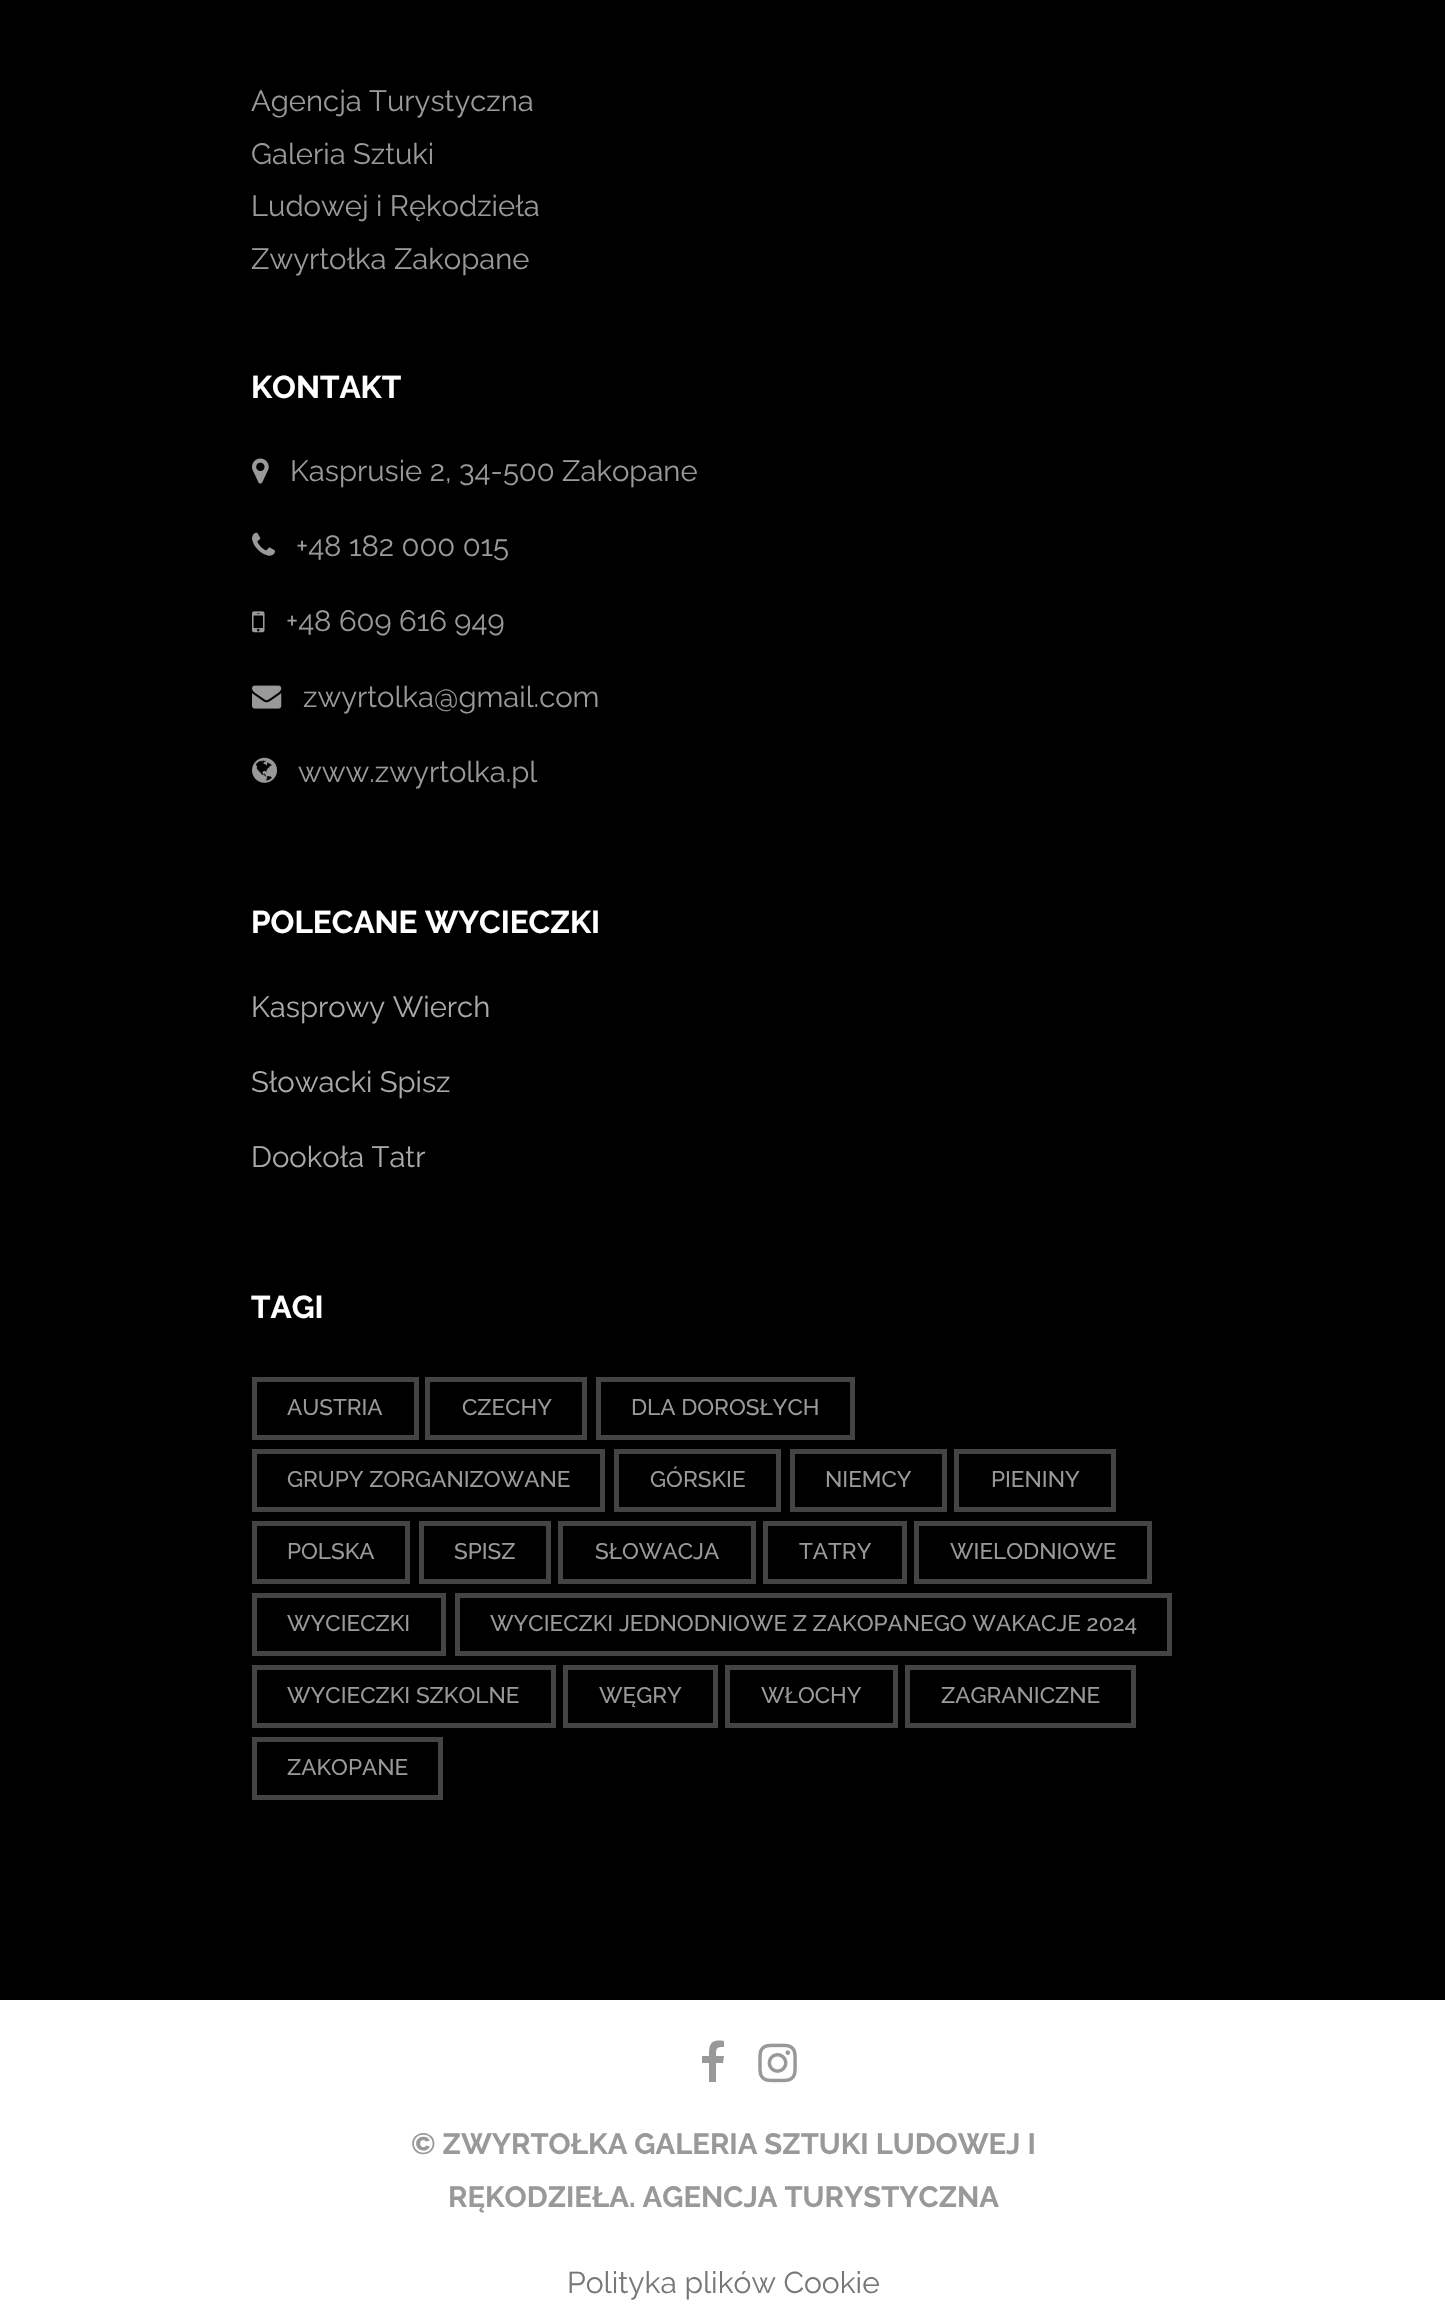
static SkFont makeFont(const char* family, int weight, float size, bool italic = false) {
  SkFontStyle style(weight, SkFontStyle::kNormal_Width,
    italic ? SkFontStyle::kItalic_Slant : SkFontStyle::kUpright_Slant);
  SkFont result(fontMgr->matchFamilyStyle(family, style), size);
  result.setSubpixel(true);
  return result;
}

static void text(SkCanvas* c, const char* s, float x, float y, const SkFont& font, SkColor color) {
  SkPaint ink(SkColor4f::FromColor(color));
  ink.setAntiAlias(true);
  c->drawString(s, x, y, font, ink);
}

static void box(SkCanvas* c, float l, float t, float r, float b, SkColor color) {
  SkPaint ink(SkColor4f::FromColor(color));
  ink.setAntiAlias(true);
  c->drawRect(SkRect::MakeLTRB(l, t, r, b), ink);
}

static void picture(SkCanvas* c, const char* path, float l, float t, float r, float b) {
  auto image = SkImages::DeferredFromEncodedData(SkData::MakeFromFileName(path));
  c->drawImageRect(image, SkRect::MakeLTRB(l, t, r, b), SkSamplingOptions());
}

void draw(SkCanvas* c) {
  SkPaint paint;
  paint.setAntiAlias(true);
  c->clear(0xffffffff);
  box(c, 0, 0, 1445, 2000, 0xff000000);
  SkFont face1 = makeFont("Raleway", 400, 29.25f);
  text(c, "Agencja Turystyczna", 251, 111, face1, 0xff999999);
  text(c, "Galeria Sztuki", 251, 164, face1, 0xff999999);
  text(c, "Ludowej i Rękodzieła", 251, 216, face1, 0xff999999);
  text(c, "Zwyrtołka Zakopane", 251, 269, face1, 0xff999999);
  SkFont face2 = makeFont("Raleway", 700, 31.5f);
  text(c, "KONTAKT", 251, 398, face2, 0xffffffff);
  picture(c, "img_01.png", 252, 458, 269, 484);
  text(c, "Kasprusie 2, 34-500 Zakopane", 290, 481, face1, 0xff999999);
  picture(c, "img_02.png", 252, 532, 275, 556);
  text(c, "+48 182 000 015", 296, 556, face1, 0xff999999);
  picture(c, "img_03.png", 252, 611, 265, 633);
  text(c, "+48 609 616 949", 286, 631, face1, 0xff999999);
  picture(c, "img_04.png", 252, 685, 282, 709);
  text(c, "zwyrtolka@gmail.com", 303, 707, face1, 0xff999999);
  picture(c, "img_05.png", 252, 757, 278, 783);
  text(c, "www.zwyrtolka.pl", 298, 782, face1, 0xff999999);
  text(c, "POLECANE WYCIECZKI", 251, 933, face2, 0xffffffff);
  text(c, "Kasprowy Wierch", 251, 1017, face1, 0xffaaaaaa);
  text(c, "Słowacki Spisz", 251, 1092, face1, 0xffaaaaaa);
  text(c, "Dookoła Tatr", 251, 1167, face1, 0xffaaaaaa);
  text(c, "TAGI", 251, 1318, face2, 0xffffffff);
  paint.setStyle(SkPaint::kStroke_Style);
  paint.setStrokeWidth(5);
  paint.setColor(0xff444444);
  c->drawRect(SkRect::MakeLTRB(254.5f, 1379.5f, 416.5f, 1437.5f), paint);
  SkFont face3 = makeFont("Raleway", 500, 22.5f);
  text(c, "AUSTRIA", 287, 1415, face3, 0xff999999);
  c->drawRect(SkRect::MakeLTRB(427.5f, 1379.5f, 584.5f, 1437.5f), paint);
  text(c, "CZECHY", 462, 1415, face3, 0xff999999);
  c->drawRect(SkRect::MakeLTRB(598.5f, 1379.5f, 852.5f, 1437.5f), paint);
  text(c, "DLA DOROSŁYCH", 631, 1415, face3, 0xff999999);
  c->drawRect(SkRect::MakeLTRB(254.5f, 1451.5f, 602.5f, 1509.5f), paint);
  text(c, "GRUPY ZORGANIZOWANE", 287, 1487, face3, 0xff999999);
  c->drawRect(SkRect::MakeLTRB(616.5f, 1451.5f, 778.5f, 1509.5f), paint);
  text(c, "GÓRSKIE", 650, 1487, face3, 0xff999999);
  c->drawRect(SkRect::MakeLTRB(792.5f, 1451.5f, 944.5f, 1509.5f), paint);
  text(c, "NIEMCY", 825, 1487, face3, 0xff999999);
  c->drawRect(SkRect::MakeLTRB(956.5f, 1451.5f, 1113.5f, 1509.5f), paint);
  text(c, "PIENINY", 991, 1487, face3, 0xff999999);
  c->drawRect(SkRect::MakeLTRB(254.5f, 1523.5f, 407.5f, 1581.5f), paint);
  text(c, "POLSKA", 287, 1559, face3, 0xff999999);
  c->drawRect(SkRect::MakeLTRB(421.5f, 1523.5f, 548.5f, 1581.5f), paint);
  text(c, "SPISZ", 454, 1559, face3, 0xff999999);
  c->drawRect(SkRect::MakeLTRB(560.5f, 1523.5f, 753.5f, 1581.5f), paint);
  text(c, "SŁOWACJA", 595, 1559, face3, 0xff999999);
  c->drawRect(SkRect::MakeLTRB(765.5f, 1523.5f, 904.5f, 1581.5f), paint);
  text(c, "TATRY", 799, 1559, face3, 0xff999999);
  c->drawRect(SkRect::MakeLTRB(916.5f, 1523.5f, 1149.5f, 1581.5f), paint);
  text(c, "WIELODNIOWE", 950, 1559, face3, 0xff999999);
  c->drawRect(SkRect::MakeLTRB(254.5f, 1595.5f, 443.5f, 1653.5f), paint);
  text(c, "WYCIECZKI", 287, 1631, face3, 0xff999999);
  c->drawRect(SkRect::MakeLTRB(457.5f, 1595.5f, 1169.5f, 1653.5f), paint);
  text(c, "WYCIECZKI JEDNODNIOWE Z ZAKOPANEGO WAKACJE 2024", 490, 1631, face3, 0xff999999);
  c->drawRect(SkRect::MakeLTRB(254.5f, 1667.5f, 553.5f, 1725.5f), paint);
  text(c, "WYCIECZKI SZKOLNE", 287, 1703, face3, 0xff999999);
  c->drawRect(SkRect::MakeLTRB(565.5f, 1667.5f, 715.5f, 1725.5f), paint);
  text(c, "WĘGRY", 599, 1703, face3, 0xff999999);
  c->drawRect(SkRect::MakeLTRB(727.5f, 1667.5f, 895.5f, 1725.5f), paint);
  text(c, "WŁOCHY", 761, 1703, face3, 0xff999999);
  c->drawRect(SkRect::MakeLTRB(907.5f, 1667.5f, 1133.5f, 1725.5f), paint);
  text(c, "ZAGRANICZNE", 941, 1703, face3, 0xff999999);
  c->drawRect(SkRect::MakeLTRB(254.5f, 1739.5f, 440.5f, 1797.5f), paint);
  text(c, "ZAKOPANE", 287, 1775, face3, 0xff999999);
  paint.setStyle(SkPaint::kFill_Style);
  paint.setColor(0xff999999);
  c->drawPath(SkPathBuilder().moveTo(724, 2041).cubicTo(711, 2039, 709, 2043, 709, 2056).lineTo(702, 2056).lineTo(702, 2063).lineTo(709, 2063).lineTo(709, 2082).lineTo(716, 2082).lineTo(716, 2063).lineTo(723, 2063).lineTo(724, 2056).lineTo(716, 2056).cubicTo(716, 2048, 716, 2047, 724, 2047).close().detach(), paint);
  picture(c, "img_06.png", 758, 2043, 797, 2083);
  SkFont face4 = makeFont("Raleway", 700, 29.25f);
  text(c, "© ZWYRTOŁKA GALERIA SZTUKI LUDOWEJ I", 411, 2154, face4, 0xff999999);
  text(c, "RĘKODZIEŁA. AGENCJA TURYSTYCZNA", 448, 2207, face4, 0xff999999);
  SkFont face5 = makeFont("Raleway", 400, 30);
  text(c, "Polityka plików Cookie", 567, 2293, face5, 0xff777777);
}
